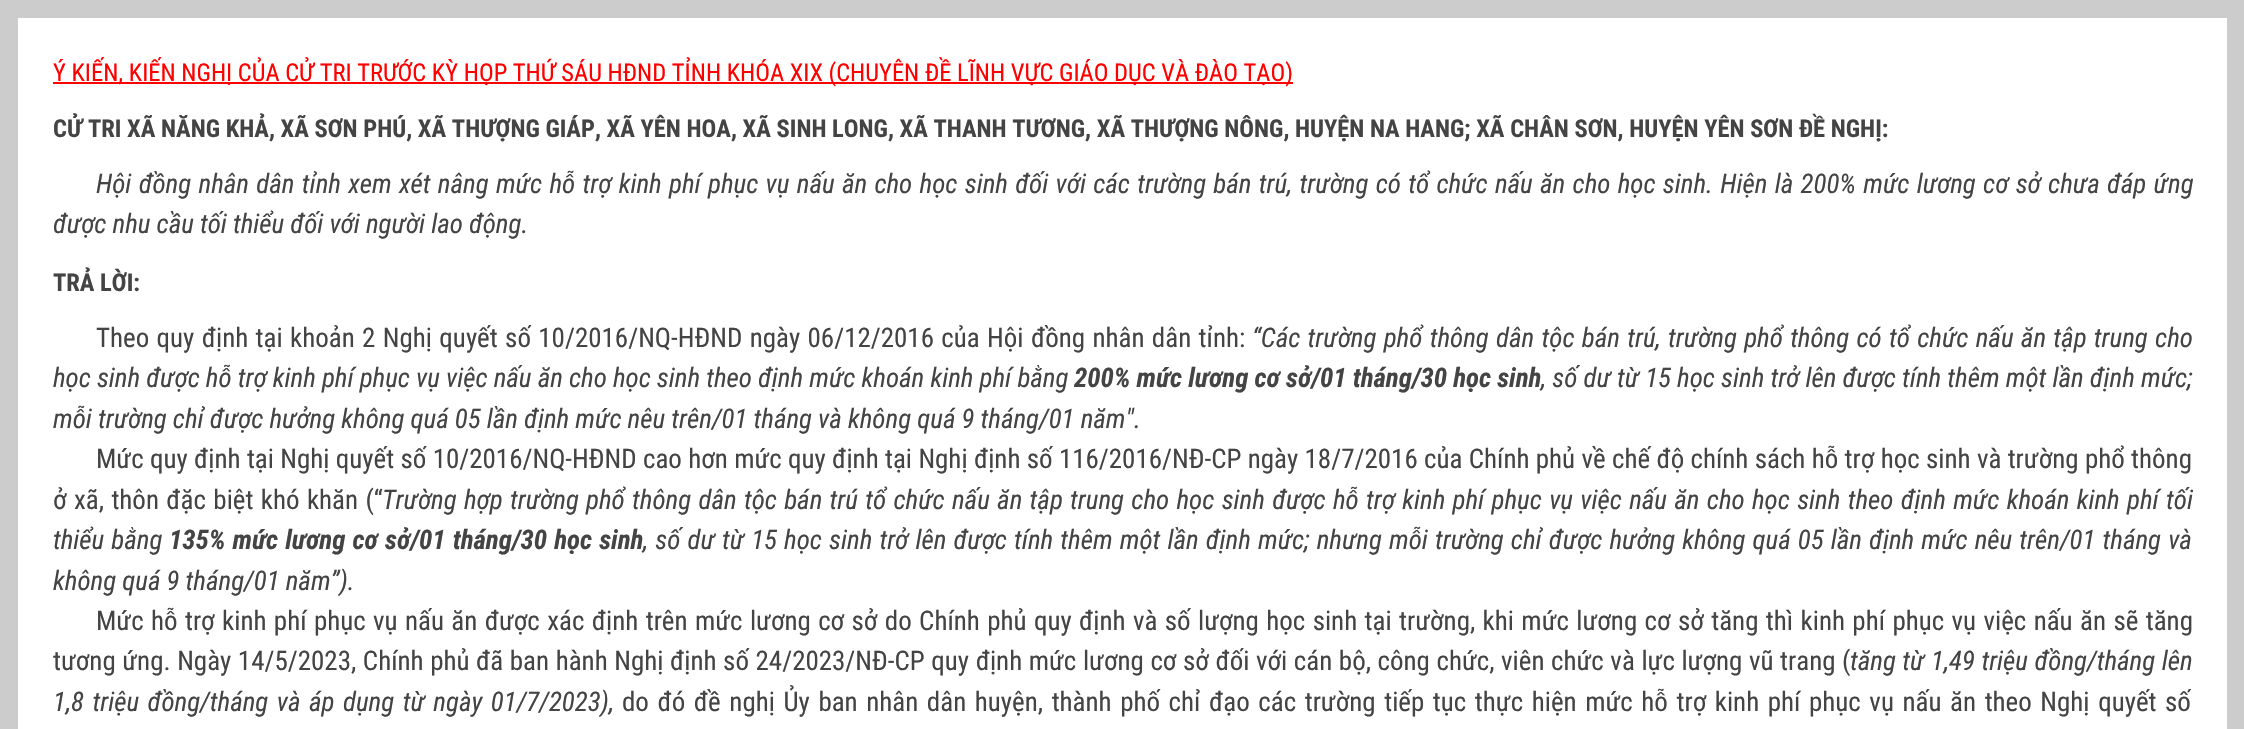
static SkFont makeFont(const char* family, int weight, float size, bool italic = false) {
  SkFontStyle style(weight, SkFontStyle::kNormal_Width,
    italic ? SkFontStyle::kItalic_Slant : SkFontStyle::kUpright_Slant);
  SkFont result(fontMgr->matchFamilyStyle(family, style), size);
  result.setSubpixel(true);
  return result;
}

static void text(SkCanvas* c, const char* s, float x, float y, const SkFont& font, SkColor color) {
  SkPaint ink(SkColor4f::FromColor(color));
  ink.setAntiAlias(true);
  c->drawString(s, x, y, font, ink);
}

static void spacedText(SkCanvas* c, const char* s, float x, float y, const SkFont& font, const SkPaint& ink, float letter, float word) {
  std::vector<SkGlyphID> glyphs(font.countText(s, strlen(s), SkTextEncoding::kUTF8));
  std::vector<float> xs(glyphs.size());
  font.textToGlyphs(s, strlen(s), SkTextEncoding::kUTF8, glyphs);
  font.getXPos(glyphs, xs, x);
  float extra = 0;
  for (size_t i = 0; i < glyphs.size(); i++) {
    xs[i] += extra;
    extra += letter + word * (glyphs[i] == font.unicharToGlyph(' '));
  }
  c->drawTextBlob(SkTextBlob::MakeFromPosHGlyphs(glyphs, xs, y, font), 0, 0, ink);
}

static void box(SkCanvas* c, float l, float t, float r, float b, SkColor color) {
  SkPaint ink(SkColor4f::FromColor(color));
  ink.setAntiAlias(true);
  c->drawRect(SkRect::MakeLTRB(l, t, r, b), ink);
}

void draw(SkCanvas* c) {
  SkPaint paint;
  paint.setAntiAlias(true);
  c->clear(0xffffffff);
  paint.setStyle(SkPaint::kStroke_Style);
  paint.setStrokeWidth(18);
  paint.setColor(0xffcccccc);
  c->drawRect(SkRect::MakeLTRB(9, 9, 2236, 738), paint);
  box(c, 53, 82, 1293, 84, 0xffff0000);
  SkFont face1 = makeFont("Roboto Condensed", 400, 24.5f);
  text(c, "Ý KIẾN, KIẾN NGHỊ CỦA CỬ TRI TRƯỚC KỲ HỌP THỨ SÁU HĐND TỈNH KHÓA XIX (CHUYÊN ĐỀ LĨNH VỰC GIÁO DỤC VÀ ĐÀO TẠO)", 53, 81, face1, 0xffff0000);
  SkFont face2 = makeFont("Roboto Condensed", 700, 24.5f);
  text(c, "CỬ TRI XÃ NĂNG KHẢ, XÃ SƠN PHÚ, XÃ THƯỢNG GIÁP, XÃ YÊN HOA, XÃ SINH LONG, XÃ THANH TƯƠNG, XÃ THƯỢNG NÔNG, HUYỆN NA HANG; XÃ CHÂN SƠN, HUYỆN YÊN SƠN ĐỀ NGHỊ:", 53, 137, face2, 0xff444444);
  SkFont face3 = makeFont("Roboto Condensed", 400, 26.95f, true);
  paint.setStyle(SkPaint::kFill_Style);
  paint.setColor(0xff444444);
  spacedText(c, "Hội đồng nhân dân tỉnh xem xét nâng mức hỗ trợ kinh phí phục vụ nấu ăn cho học sinh đối với các trường bán trú, trường có tổ chức nấu ăn cho học sinh. Hiện là 200% mức lương cơ sở chưa đáp ứng", 96, 193, face3, paint, 0, 1.2f);
  text(c, "được nhu cầu tối thiểu đối với người lao động.", 53, 233, face3, 0xff444444);
  text(c, "TRẢ LỜI:", 53, 291, face2, 0xff444444);
  SkFont face4 = makeFont("Roboto Condensed", 400, 26.95f);
  spacedText(c, "Theo quy định tại khoản 2 Nghị quyết số 10/2016/NQ-HĐND ngày 06/12/2016 của Hội đồng nhân dân tỉnh:", 96, 347, face4, paint, 0, 1.2f);
  spacedText(c, "“Các trường phổ thông dân tộc bán trú, trường phổ thông có tổ chức nấu ăn tập trung cho", 1252, 347, face3, paint, 0, 1.2f);
  text(c, "học sinh được hỗ trợ kinh phí phục vụ việc nấu ăn cho học sinh theo định mức khoán kinh phí bằng", 53, 387, face3, 0xff444444);
  SkFont face5 = makeFont("Roboto Condensed", 700, 26.95f, true);
  text(c, "200% mức lương cơ sở/01 tháng/30 học sinh", 1074, 387, face5, 0xff444444);
  text(c, ", số dư từ 15 học sinh trở lên được tính thêm một lần định mức;", 1541, 387, face3, 0xff444444);
  text(c, "mỗi trường chỉ được hưởng không quá 05 lần định mức nêu trên/01 tháng và không quá 9 tháng/01 năm\".", 53, 428, face3, 0xff444444);
  spacedText(c, "Mức quy định tại Nghị quyết số 10/2016/NQ-HĐND cao hơn mức quy định tại Nghị định số 116/2016/NĐ-CP ngày 18/7/2016 của Chính phủ về chế độ chính sách hỗ trợ học sinh và trường phổ thông", 96, 468, face4, paint, 0, 0.15f);
  spacedText(c, "ở xã, thôn đặc biệt khó khăn (“", 53, 509, face4, paint, 0, 1.2f);
  spacedText(c, "Trường hợp trường phổ thông dân tộc bán trú tổ chức nấu ăn tập trung cho học sinh được hỗ trợ kinh phí phục vụ việc nấu ăn cho học sinh theo định mức khoán kinh phí tối", 382, 509, face3, paint, 0, 1.2f);
  spacedText(c, "thiểu bằng", 53, 549, face3, paint, 0, 1);
  spacedText(c, "135% mức lương cơ sở/01 tháng/30 học sinh", 169, 549, face5, paint, 0, 1);
  spacedText(c, ", số dư từ 15 học sinh trở lên được tính thêm một lần định mức; nhưng mỗi trường chỉ được hưởng không quá 05 lần định mức nêu trên/01 tháng và", 643, 549, face3, paint, 0, 1);
  text(c, "không quá 9 tháng/01 năm”).", 53, 590, face3, 0xff444444);
  spacedText(c, "Mức hỗ trợ kinh phí phục vụ nấu ăn được xác định trên mức lương cơ sở do Chính phủ quy định và số lượng học sinh tại trường, khi mức lương cơ sở tăng thì kinh phí phục vụ việc nấu ăn sẽ tăng", 96, 630, face4, paint, 0, 1.2f);
  spacedText(c, "tương ứng. Ngày 14/5/2023, Chính phủ đã ban hành Nghị định số 24/2023/NĐ-CP quy định mức lương cơ sở đối với cán bộ, công chức, viên chức và lực lượng vũ trang (", 53, 670, face4, paint, 0, 0.4f);
  spacedText(c, "tăng từ 1,49 triệu đồng/tháng lên", 1850, 670, face3, paint, 0, 0.4f);
  spacedText(c, "1,8 triệu đồng/tháng và áp dụng từ ngày 01/7/2023),", 53, 711, face3, paint, 0, 2.4f);
  spacedText(c, "do đó đề nghị Ủy ban nhân dân huyện, thành phố chỉ đạo các trường tiếp tục thực hiện mức hỗ trợ kinh phí phục vụ nấu ăn theo Nghị quyết số", 622, 711, face4, paint, 0, 2.4f);
}
